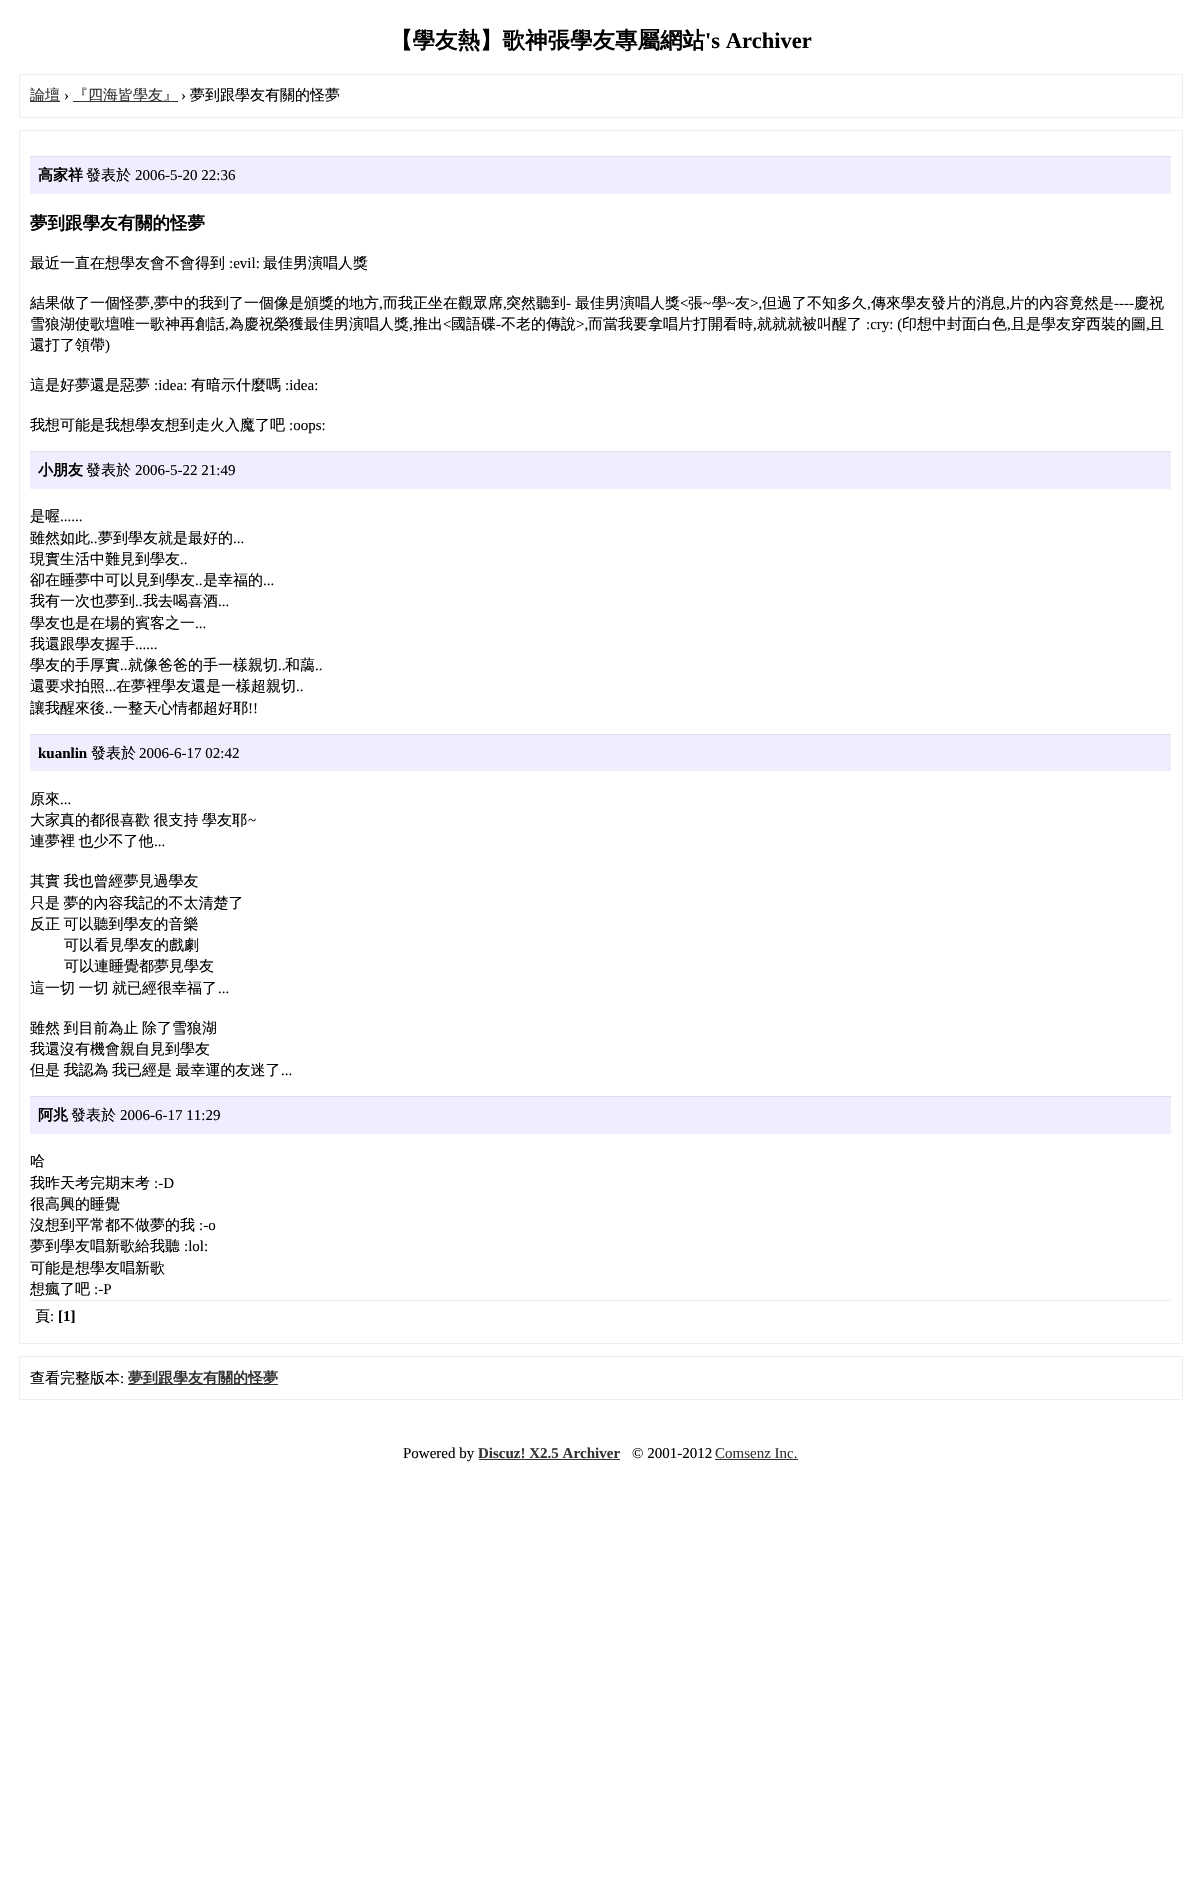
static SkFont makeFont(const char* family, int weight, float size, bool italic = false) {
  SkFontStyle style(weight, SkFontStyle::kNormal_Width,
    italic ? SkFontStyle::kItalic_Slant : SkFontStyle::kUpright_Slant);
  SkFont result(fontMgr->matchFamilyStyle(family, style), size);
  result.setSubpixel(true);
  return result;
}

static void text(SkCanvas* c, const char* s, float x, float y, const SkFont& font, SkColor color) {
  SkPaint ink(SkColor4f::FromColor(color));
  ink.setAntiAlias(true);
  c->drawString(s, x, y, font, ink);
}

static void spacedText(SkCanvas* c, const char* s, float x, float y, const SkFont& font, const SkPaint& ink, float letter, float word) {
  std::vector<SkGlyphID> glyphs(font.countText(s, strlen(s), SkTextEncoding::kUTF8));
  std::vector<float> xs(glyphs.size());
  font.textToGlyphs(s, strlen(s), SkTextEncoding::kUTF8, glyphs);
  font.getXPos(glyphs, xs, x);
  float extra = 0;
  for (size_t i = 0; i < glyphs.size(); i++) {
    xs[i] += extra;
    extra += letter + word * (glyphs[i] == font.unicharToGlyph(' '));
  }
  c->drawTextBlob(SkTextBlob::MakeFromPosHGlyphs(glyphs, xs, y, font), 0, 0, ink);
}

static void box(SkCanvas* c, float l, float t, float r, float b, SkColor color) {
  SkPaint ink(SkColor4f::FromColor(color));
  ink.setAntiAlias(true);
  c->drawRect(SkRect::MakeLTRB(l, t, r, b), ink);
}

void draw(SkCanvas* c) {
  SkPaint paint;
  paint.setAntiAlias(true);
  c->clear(0xffffffff);
  SkFont face1 = makeFont("WenQuanYi Zen Hei", 700, 22.5f);
  text(c, "【學友熱】歌神張學友專屬網站", 390, 48, face1, 0xff000000);
  SkFont face2 = makeFont("Liberation Serif", 700, 22.5f);
  text(c, "'s Archiver", 705, 48, face2, 0xff000000);
  paint.setStyle(SkPaint::kStroke_Style);
  paint.setStrokeWidth(1);
  paint.setColor(0xffeeeeee);
  c->drawRect(SkRect::MakeLTRB(19.5f, 74.5f, 1182.5f, 117.5f), paint);
  box(c, 30, 101, 60, 102, 0xff333333);
  SkFont face3 = makeFont("WenQuanYi Zen Hei", 500, 15);
  text(c, "論壇", 30, 100, face3, 0xff333333);
  SkFont face4 = makeFont("Liberation Serif", 400, 15);
  text(c, "›", 64, 100, face4, 0xff000000);
  box(c, 73, 101, 178, 102, 0xff333333);
  text(c, "『四海皆學友』", 73, 100, face3, 0xff333333);
  text(c, "›", 181, 100, face4, 0xff000000);
  text(c, "夢到跟學友有關的怪夢", 190, 100, face3, 0xff000000);
  c->drawRect(SkRect::MakeLTRB(19.5f, 130.5f, 1182.5f, 1343.5f), paint);
  box(c, 30, 157, 1171, 194, 0xffeeeeff);
  box(c, 30, 156, 1171, 157, 0xffddddee);
  SkFont face5 = makeFont("WenQuanYi Zen Hei", 700, 15);
  text(c, "高家祥", 38, 180, face5, 0xff000000);
  text(c, "發表於", 86, 180, face3, 0xff000000);
  text(c, "2006-5-20 22:36", 135, 180, face4, 0xff000000);
  SkFont face6 = makeFont("WenQuanYi Zen Hei", 700, 17.5f);
  text(c, "夢到跟學友有關的怪夢", 30, 229, face6, 0xff000000);
  text(c, "最近一直在想學友會不會得到", 30, 268, face3, 0xff000000);
  text(c, ":evil:", 229, 268, face4, 0xff000000);
  text(c, "最佳男演唱人獎", 263, 268, face3, 0xff000000);
  text(c, "結果做了一個怪夢", 30, 308, face3, 0xff000000);
  text(c, "夢中的我到了一個像是頒獎的地方", 154, 308, face3, 0xff000000);
  text(c, "而我正坐在觀眾席", 383, 308, face3, 0xff000000);
  text(c, "突然聽到", 506, 308, face3, 0xff000000);
  text(c, "-", 566, 308, face4, 0xff000000);
  text(c, "最佳男演唱人獎", 575, 308, face3, 0xff000000);
  text(c, "<", 680, 308, face4, 0xff000000);
  text(c, "張", 688, 308, face3, 0xff000000);
  text(c, "~", 703, 308, face4, 0xff000000);
  text(c, "學", 712, 308, face3, 0xff000000);
  text(c, "~", 727, 308, face4, 0xff000000);
  text(c, "友", 735, 308, face3, 0xff000000);
  text(c, ">,", 750, 308, face4, 0xff000000);
  text(c, "但過了不知多久", 762, 308, face3, 0xff000000);
  text(c, "傳來學友發片的消息", 871, 308, face3, 0xff000000);
  text(c, "片的內容竟然是", 1009, 308, face3, 0xff000000);
  text(c, "----", 1114, 308, face4, 0xff000000);
  text(c, "慶祝", 1134, 308, face3, 0xff000000);
  text(c, ",", 150, 308, face4, 0xff000000);
  text(c, ",", 379, 308, face4, 0xff000000);
  text(c, ",", 503, 308, face4, 0xff000000);
  text(c, ",", 867, 308, face4, 0xff000000);
  text(c, ",", 1006, 308, face4, 0xff000000);
  text(c, "雪狼湖使歌壇唯一歌神再創話", 30, 329, face3, 0xff000000);
  text(c, "為慶祝榮獲最佳男演唱人獎", 229, 329, face3, 0xff000000);
  text(c, "推出", 413, 329, face3, 0xff000000);
  text(c, "<", 443, 329, face4, 0xff000000);
  text(c, "國語碟", 451, 329, face3, 0xff000000);
  text(c, "-", 496, 329, face4, 0xff000000);
  text(c, "不老的傳說", 501, 329, face3, 0xff000000);
  text(c, ">,", 576, 329, face4, 0xff000000);
  text(c, "而當我要拿唱片打開看時", 588, 329, face3, 0xff000000);
  text(c, "就就就被叫醒了", 757, 329, face3, 0xff000000);
  text(c, ":cry: (", 866, 329, face4, 0xff000000);
  text(c, "印想中封面白色", 902, 329, face3, 0xff000000);
  text(c, "且是學友穿西裝的圖", 1011, 329, face3, 0xff000000);
  text(c, "且", 1149, 329, face3, 0xff000000);
  text(c, ",", 225, 329, face4, 0xff000000);
  text(c, ",", 409, 329, face4, 0xff000000);
  text(c, ",", 753, 329, face4, 0xff000000);
  text(c, ",", 1007, 329, face4, 0xff000000);
  text(c, ",", 1146, 329, face4, 0xff000000);
  text(c, "還打了領帶", 30, 350, face3, 0xff000000);
  text(c, ")", 105, 350, face4, 0xff000000);
  text(c, "這是好夢還是惡夢", 30, 390, face3, 0xff000000);
  text(c, ":idea:", 154, 390, face4, 0xff000000);
  text(c, "有暗示什麼嗎", 191, 390, face3, 0xff000000);
  text(c, ":idea:", 285, 390, face4, 0xff000000);
  text(c, "我想可能是我想學友想到走火入魔了吧", 30, 430, face3, 0xff000000);
  text(c, ":oops:", 289, 430, face4, 0xff000000);
  box(c, 30, 452, 1171, 489, 0xffeeeeff);
  box(c, 30, 451, 1171, 452, 0xffddddee);
  text(c, "小朋友", 38, 475, face5, 0xff000000);
  text(c, "發表於", 86, 475, face3, 0xff000000);
  text(c, "2006-5-22 21:49", 135, 475, face4, 0xff000000);
  text(c, "是喔", 30, 521, face3, 0xff000000);
  text(c, "......", 60, 521, face4, 0xff000000);
  text(c, "雖然如此", 30, 543, face3, 0xff000000);
  text(c, "..", 90, 543, face4, 0xff000000);
  text(c, "夢到學友就是最好的", 98, 543, face3, 0xff000000);
  text(c, "...", 233, 543, face4, 0xff000000);
  text(c, "現實生活中難見到學友", 30, 564, face3, 0xff000000);
  text(c, "..", 180, 564, face4, 0xff000000);
  text(c, "卻在睡夢中可以見到學友", 30, 585, face3, 0xff000000);
  text(c, "..", 195, 585, face4, 0xff000000);
  text(c, "是幸福的", 203, 585, face3, 0xff000000);
  text(c, "...", 263, 585, face4, 0xff000000);
  text(c, "我有一次也夢到", 30, 606, face3, 0xff000000);
  text(c, "..", 135, 606, face4, 0xff000000);
  text(c, "我去喝喜酒", 143, 606, face3, 0xff000000);
  text(c, "...", 218, 606, face4, 0xff000000);
  text(c, "學友也是在場的賓客之一", 30, 628, face3, 0xff000000);
  text(c, "...", 195, 628, face4, 0xff000000);
  text(c, "我還跟學友握手", 30, 649, face3, 0xff000000);
  text(c, "......", 135, 649, face4, 0xff000000);
  text(c, "學友的手厚實", 30, 670, face3, 0xff000000);
  text(c, "..", 120, 670, face4, 0xff000000);
  text(c, "就像爸爸的手一樣親切", 128, 670, face3, 0xff000000);
  text(c, "..", 278, 670, face4, 0xff000000);
  text(c, "和藹", 285, 670, face3, 0xff000000);
  text(c, "..", 315, 670, face4, 0xff000000);
  text(c, "還要求拍照", 30, 691, face3, 0xff000000);
  text(c, "...", 105, 691, face4, 0xff000000);
  text(c, "在夢裡學友還是一樣超親切", 116, 691, face3, 0xff000000);
  text(c, "..", 296, 691, face4, 0xff000000);
  text(c, "讓我醒來後", 30, 713, face3, 0xff000000);
  text(c, "..", 105, 713, face4, 0xff000000);
  text(c, "一整天心情都超好耶", 113, 713, face3, 0xff000000);
  text(c, "!!", 248, 713, face4, 0xff000000);
  box(c, 30, 735, 1171, 771, 0xffeeeeff);
  box(c, 30, 734, 1171, 735, 0xffddddee);
  SkFont face7 = makeFont("Liberation Serif", 700, 15);
  text(c, "kuanlin", 38, 758, face7, 0xff000000);
  text(c, "發表於", 91, 758, face3, 0xff000000);
  text(c, "2006-6-17 02:42", 139, 758, face4, 0xff000000);
  text(c, "原來", 30, 804, face3, 0xff000000);
  text(c, "...", 60, 804, face4, 0xff000000);
  paint.setStyle(SkPaint::kFill_Style);
  paint.setColor(0xff000000);
  spacedText(c, "大家真的都很喜歡 很支持 學友耶", 30, 825, face3, paint, 0, -1);
  text(c, "~", 248, 825, face4, 0xff000000);
  spacedText(c, "連夢裡 也少不了他", 30, 846, face3, paint, 0, -1);
  text(c, "...", 154, 846, face4, 0xff000000);
  spacedText(c, "其實 我也曾經夢見過學友", 30, 886, face3, paint, 0, -1);
  spacedText(c, "只是 夢的內容我記的不太清楚了", 30, 908, face3, paint, 0, -1);
  spacedText(c, "反正 可以聽到學友的音樂", 30, 929, face3, paint, 0, -1);
  text(c, "可以看見學友的戲劇", 64, 950, face3, 0xff000000);
  text(c, "可以連睡覺都夢見學友", 64, 971, face3, 0xff000000);
  spacedText(c, "這一切 一切 就已經很幸福了", 30, 993, face3, paint, 0, -1);
  text(c, "...", 218, 993, face4, 0xff000000);
  spacedText(c, "雖然 到目前為止 除了雪狼湖", 30, 1033, face3, paint, 0, -1);
  text(c, "我還沒有機會親自見到學友", 30, 1054, face3, 0xff000000);
  spacedText(c, "但是 我認為 我已經是 最幸運的友迷了", 30, 1075, face3, paint, 0, -1);
  text(c, "...", 281, 1075, face4, 0xff000000);
  box(c, 30, 1097, 1171, 1134, 0xffeeeeff);
  box(c, 30, 1096, 1171, 1097, 0xffddddee);
  text(c, "阿兆", 38, 1120, face5, 0xff000000);
  text(c, "發表於", 71, 1120, face3, 0xff000000);
  text(c, "2006-6-17 11:29", 120, 1120, face4, 0xff000000);
  text(c, "哈", 30, 1166, face3, 0xff000000);
  text(c, "我昨天考完期末考", 30, 1188, face3, 0xff000000);
  text(c, ":-D", 154, 1188, face4, 0xff000000);
  text(c, "很高興的睡覺", 30, 1209, face3, 0xff000000);
  text(c, "沒想到平常都不做夢的我", 30, 1230, face3, 0xff000000);
  text(c, ":-o", 199, 1230, face4, 0xff000000);
  text(c, "夢到學友唱新歌給我聽", 30, 1251, face3, 0xff000000);
  text(c, ":lol:", 184, 1251, face4, 0xff000000);
  text(c, "可能是想學友唱新歌", 30, 1273, face3, 0xff000000);
  text(c, "想瘋了吧", 30, 1294, face3, 0xff000000);
  text(c, ":-P", 94, 1294, face4, 0xff000000);
  box(c, 30, 1300, 1171, 1301, 0xffeeeeee);
  text(c, "頁", 35, 1321, face3, 0xff000000);
  text(c, ":", 50, 1321, face4, 0xff000000);
  text(c, "[1]", 58, 1321, face7, 0xff000000);
  paint.setStyle(SkPaint::kStroke_Style);
  paint.setColor(0xffeeeeee);
  c->drawRect(SkRect::MakeLTRB(19.5f, 1356.5f, 1182.5f, 1399.5f), paint);
  text(c, "查看完整版本", 30, 1383, face3, 0xff000000);
  text(c, ":", 120, 1383, face4, 0xff000000);
  box(c, 128, 1384, 278, 1385, 0xff333333);
  text(c, "夢到跟學友有關的怪夢", 128, 1383, face5, 0xff333333);
  text(c, "Powered by", 403, 1458, face4, 0xff000000);
  text(c, "Discuz! X2.5 Archiver", 478, 1458, face7, 0xff333333);
  box(c, 479, 1459, 620, 1460, 0xff333333);
  text(c, "© 2001-2012", 632, 1458, face4, 0xff000000);
  text(c, "Comsenz Inc.", 715, 1458, face4, 0xff333333);
  box(c, 715, 1459, 798, 1460, 0xff333333);
}
